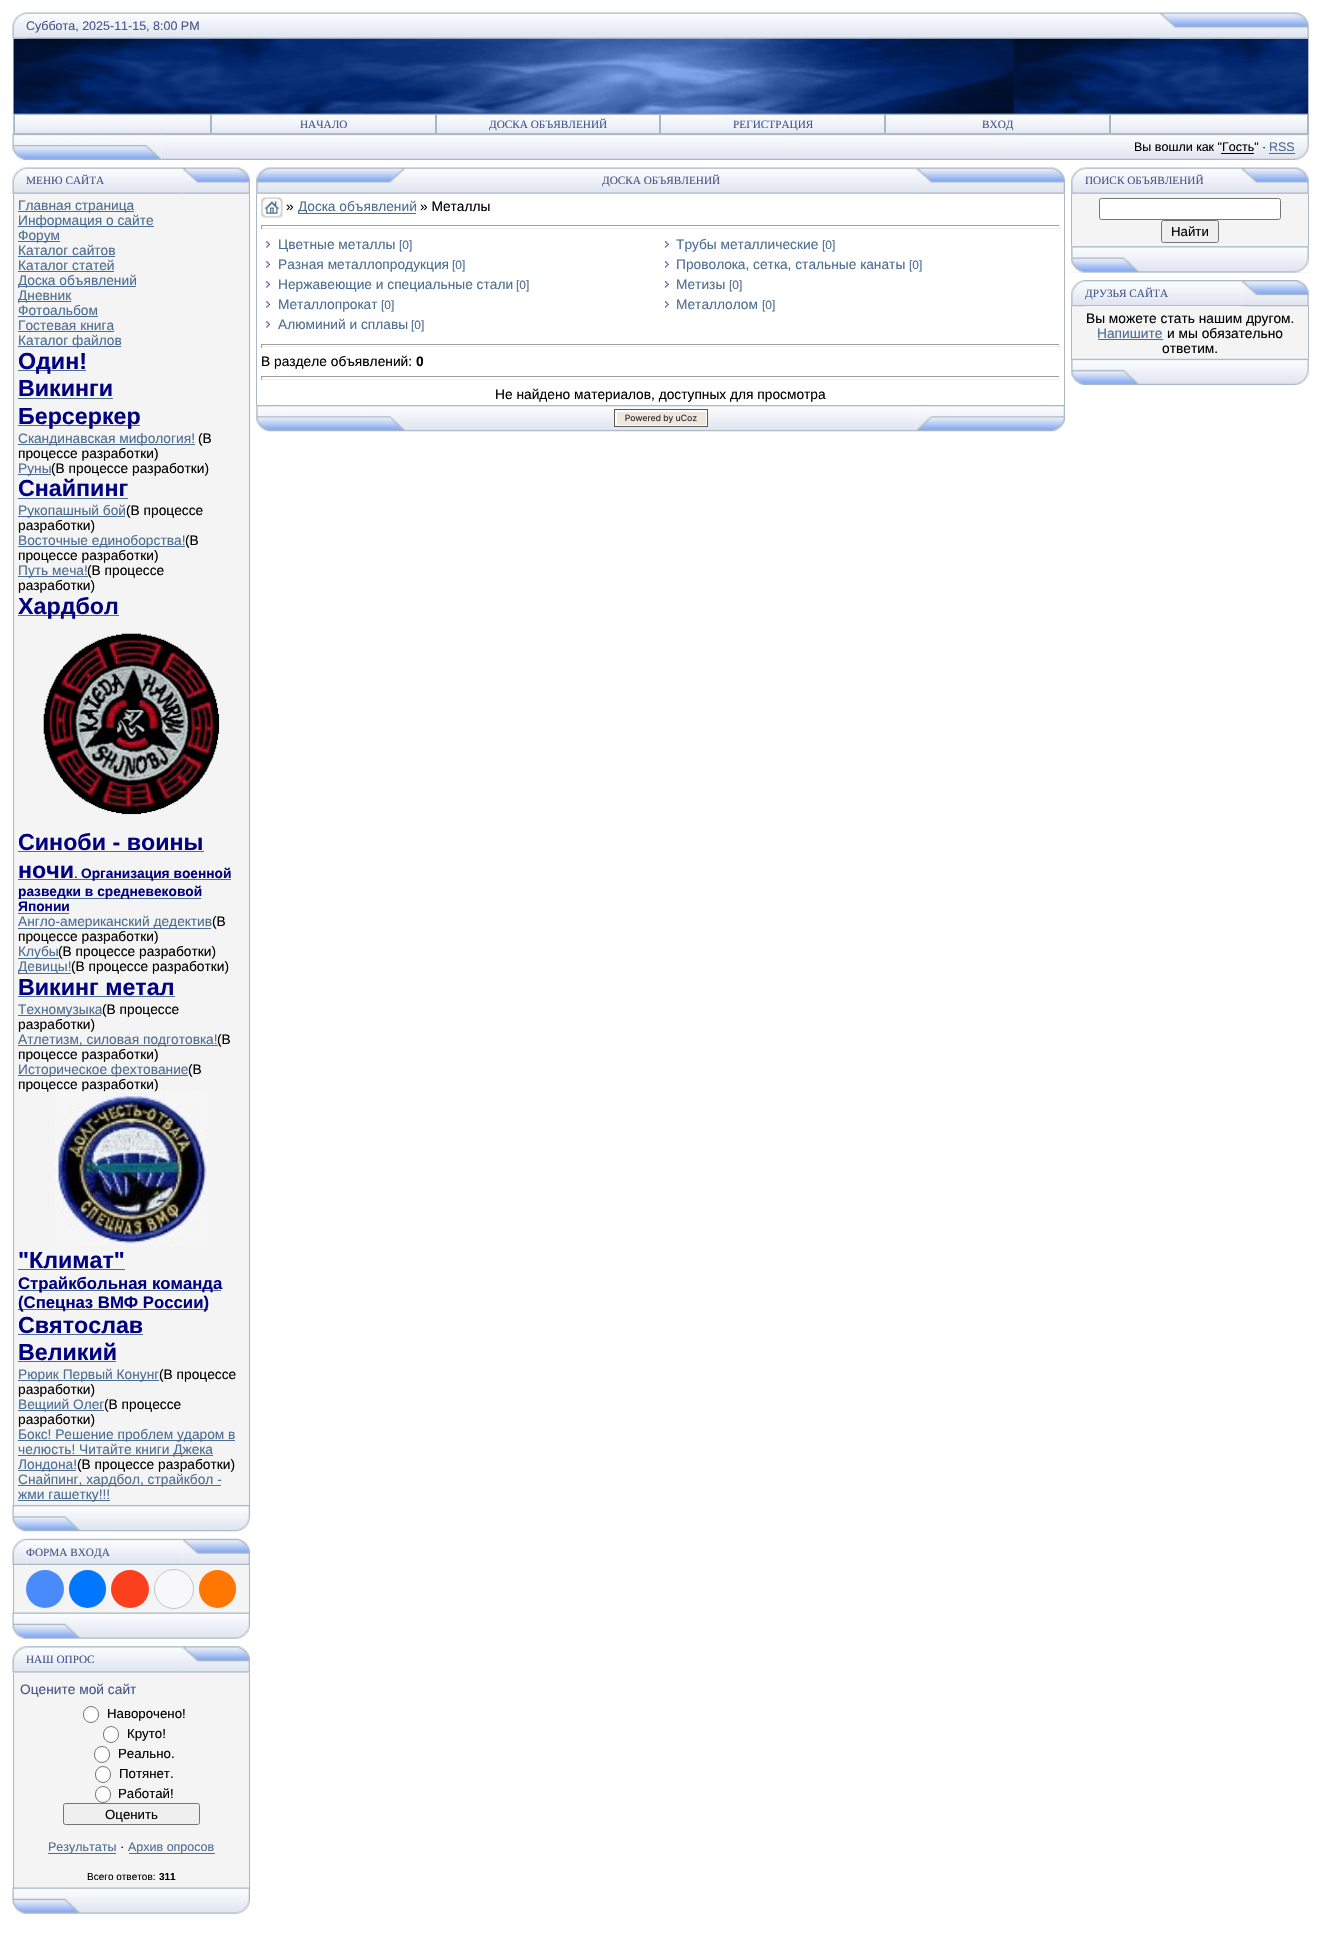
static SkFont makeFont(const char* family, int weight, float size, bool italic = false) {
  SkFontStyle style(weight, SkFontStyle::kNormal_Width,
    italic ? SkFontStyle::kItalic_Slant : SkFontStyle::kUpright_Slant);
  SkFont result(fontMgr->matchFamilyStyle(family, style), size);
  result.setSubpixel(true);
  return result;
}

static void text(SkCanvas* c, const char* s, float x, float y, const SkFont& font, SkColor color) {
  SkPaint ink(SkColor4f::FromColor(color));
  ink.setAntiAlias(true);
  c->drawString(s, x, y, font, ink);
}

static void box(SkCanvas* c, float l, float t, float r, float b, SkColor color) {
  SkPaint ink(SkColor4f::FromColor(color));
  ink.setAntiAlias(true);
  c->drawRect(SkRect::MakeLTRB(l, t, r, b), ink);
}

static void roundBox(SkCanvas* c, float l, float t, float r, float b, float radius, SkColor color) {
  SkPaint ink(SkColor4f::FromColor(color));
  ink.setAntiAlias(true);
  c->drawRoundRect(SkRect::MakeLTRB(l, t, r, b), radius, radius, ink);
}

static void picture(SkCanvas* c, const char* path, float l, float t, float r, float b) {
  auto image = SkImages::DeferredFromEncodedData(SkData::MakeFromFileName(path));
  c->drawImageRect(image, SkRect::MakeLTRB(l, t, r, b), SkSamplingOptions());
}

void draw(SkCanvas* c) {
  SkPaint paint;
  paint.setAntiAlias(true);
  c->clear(0xffffffff);
  picture(c, "img_02.png", 26, 12, 1160, 39);
  box(c, 1160, 13, 1309, 39, 0xffe4e8f3);
  box(c, 13, 39, 14, 134, 0xffa9b8c2);
  box(c, 14, 39, 1308, 114, 0xff03276e);
  picture(c, "img_04.png", 13, 38, 1308, 114);
  picture(c, "img_01.png", 12, 12, 27, 39);
  SkFont face1 = makeFont("Liberation Sans", 400, 12.5f);
  text(c, "Суббота, 2025-11-15, 8:00 PM", 26, 30, face1, 0xff445588);
  picture(c, "img_03.png", 1160, 12, 1309, 39);
  box(c, 1308, 39, 1309, 134, 0xffa9b8c2);
  picture(c, "img_05.png", 13, 113, 212, 134);
  paint.setStyle(SkPaint::kStroke_Style);
  paint.setStrokeWidth(1);
  paint.setColor(0xffa9b8c2);
  c->drawRect(SkRect::MakeLTRB(14.5f, 114.5f, 210.5f, 133.5f), paint);
  picture(c, "img_06.png", 211, 113, 437, 133);
  c->drawRect(SkRect::MakeLTRB(211.5f, 114.5f, 435.5f, 133.5f), paint);
  SkFont face2 = makeFont("Liberation Serif", 400, 11.25f);
  text(c, "НАЧАЛО", 300, 128, face2, 0xff445588);
  picture(c, "img_07.png", 436, 113, 660, 133);
  c->drawRect(SkRect::MakeLTRB(436.5f, 114.5f, 659.5f, 133.5f), paint);
  text(c, "ДОСКА ОБЪЯВЛЕНИЙ", 489, 128, face2, 0xff445588);
  picture(c, "img_08.png", 660, 113, 885, 133);
  c->drawRect(SkRect::MakeLTRB(660.5f, 114.5f, 884.5f, 133.5f), paint);
  text(c, "РЕГИСТРАЦИЯ", 733, 128, face2, 0xff445588);
  picture(c, "img_09.png", 885, 113, 1110, 133);
  c->drawRect(SkRect::MakeLTRB(885.5f, 114.5f, 1109.5f, 133.5f), paint);
  text(c, "ВХОД", 982, 128, face2, 0xff445588);
  picture(c, "img_10.png", 1110, 113, 1308, 133);
  c->drawRect(SkRect::MakeLTRB(1110.5f, 114.5f, 1307.5f, 133.5f), paint);
  picture(c, "img_12.png", 161, 134, 1295, 160);
  picture(c, "img_11.png", 12, 133, 162, 160);
  text(c, "Вы вошли как \"Гость\" ·", 1134, 151, face1, 0xff000000);
  text(c, "RSS", 1269, 151, face1, 0xff4d6d91);
  box(c, 1269, 153, 1295, 154, 0xff4d6d91);
  box(c, 1221, 153, 1254, 154, 0xff000000);
  picture(c, "img_13.png", 1295, 134, 1309, 160);
  box(c, 13, 168, 250, 194, 0xffe9ecf5);
  picture(c, "img_15.png", 26, 167, 183, 194);
  picture(c, "img_14.png", 12, 167, 27, 194);
  text(c, "МЕНЮ САЙТА", 26, 184, face2, 0xff445588);
  picture(c, "img_16.png", 182, 167, 250, 194);
  box(c, 14, 194, 249, 1505, 0xfff4f4f4);
  box(c, 249, 194, 250, 1505, 0xffa9b8c2);
  box(c, 13, 194, 14, 1505, 0xffa9b8c2);
  box(c, 18, 211, 134, 212, 0xff4d6d91);
  SkFont face3 = makeFont("Liberation Sans", 400, 13.75f);
  text(c, "Главная страница", 18, 210, face3, 0xff4d6d91);
  box(c, 18, 226, 154, 227, 0xff4d6d91);
  text(c, "Информация о сайте", 18, 225, face3, 0xff4d6d91);
  box(c, 18, 241, 60, 242, 0xff4d6d91);
  text(c, "Форум", 18, 240, face3, 0xff4d6d91);
  text(c, "Каталог сайтов", 18, 255, face3, 0xff4d6d91);
  box(c, 18, 256, 115, 257, 0xff4d6d91);
  text(c, "Каталог статей", 18, 270, face3, 0xff4d6d91);
  box(c, 18, 271, 114, 272, 0xff4d6d91);
  box(c, 18, 286, 136, 287, 0xff4d6d91);
  text(c, "Доска объявлений", 18, 285, face3, 0xff4d6d91);
  box(c, 18, 301, 71, 302, 0xff4d6d91);
  text(c, "Дневник", 18, 300, face3, 0xff4d6d91);
  text(c, "Фотоальбом", 18, 315, face3, 0xff4d6d91);
  box(c, 18, 316, 98, 317, 0xff4d6d91);
  text(c, "Гостевая книга", 18, 330, face3, 0xff4d6d91);
  box(c, 18, 331, 114, 332, 0xff4d6d91);
  box(c, 18, 346, 121, 347, 0xff4d6d91);
  text(c, "Каталог файлов", 18, 345, face3, 0xff4d6d91);
  box(c, 18, 370, 86, 371, 0xff4d6d91);
  SkFont face4 = makeFont("Liberation Sans", 700, 23.25f);
  text(c, "Один!", 18, 369, face4, 0xff000080);
  text(c, "Викинги", 18, 396, face4, 0xff000080);
  box(c, 18, 398, 113, 399, 0xff4d6d91);
  box(c, 18, 425, 140, 426, 0xff4d6d91);
  text(c, "Берсеркер", 18, 424, face4, 0xff000080);
  box(c, 18, 444, 195, 445, 0xff4d6d91);
  text(c, "Скандинавская мифология!", 18, 443, face3, 0xff4d6d91);
  text(c, "(В", 198, 443, face3, 0xff000000);
  text(c, "процессе разработки)", 18, 458, face3, 0xff000000);
  box(c, 18, 474, 51, 475, 0xff4d6d91);
  text(c, "Руны", 18, 473, face3, 0xff4d6d91);
  text(c, "(В процессе разработки)", 51, 473, face3, 0xff000000);
  text(c, "Снайпинг", 18, 496, face4, 0xff000080);
  box(c, 18, 498, 128, 499, 0xff4d6d91);
  box(c, 18, 516, 125, 517, 0xff4d6d91);
  text(c, "Рукопашный бой", 18, 515, face3, 0xff4d6d91);
  text(c, "(В процессе", 126, 515, face3, 0xff000000);
  text(c, "разработки)", 18, 530, face3, 0xff000000);
  box(c, 18, 546, 185, 547, 0xff4d6d91);
  text(c, "Восточные единоборства!", 18, 545, face3, 0xff4d6d91);
  text(c, "(В", 185, 545, face3, 0xff000000);
  text(c, "процессе разработки)", 18, 560, face3, 0xff000000);
  box(c, 18, 576, 88, 577, 0xff4d6d91);
  text(c, "Путь меча!", 18, 575, face3, 0xff4d6d91);
  text(c, "(В процессе", 87, 575, face3, 0xff000000);
  text(c, "разработки)", 18, 590, face3, 0xff000000);
  box(c, 18, 615, 119, 616, 0xff4d6d91);
  text(c, "Хардбол", 18, 614, face4, 0xff000080);
  picture(c, "img_17.png", 43, 633, 220, 815);
  text(c, "Синоби - воины", 18, 850, face4, 0xff000080);
  box(c, 18, 851, 204, 852, 0xff4d6d91);
  text(c, "ночи", 18, 878, face4, 0xff000080);
  text(c, ".", 74, 878, face3, 0xff000080);
  box(c, 18, 879, 231, 880, 0xff4d6d91);
  SkFont face5 = makeFont("Liberation Sans", 700, 13.75f);
  text(c, "Организация военной", 81, 878, face5, 0xff000080);
  box(c, 18, 898, 201, 899, 0xff4d6d91);
  text(c, "разведки в средневековой", 18, 896, face5, 0xff000080);
  text(c, "Японии", 18, 911, face5, 0xff000080);
  box(c, 18, 913, 69, 914, 0xff4d6d91);
  box(c, 18, 928, 211, 929, 0xff4d6d91);
  text(c, "Англо-американский дедектив", 18, 926, face3, 0xff4d6d91);
  text(c, "(В", 212, 926, face3, 0xff000000);
  text(c, "процессе разработки)", 18, 941, face3, 0xff000000);
  box(c, 18, 958, 59, 959, 0xff4d6d91);
  text(c, "Клубы", 18, 956, face3, 0xff4d6d91);
  text(c, "(В процессе разработки)", 58, 956, face3, 0xff000000);
  box(c, 18, 973, 71, 974, 0xff4d6d91);
  text(c, "Девицы!", 18, 971, face3, 0xff4d6d91);
  text(c, "(В процессе разработки)", 71, 971, face3, 0xff000000);
  text(c, "Викинг метал", 18, 995, face4, 0xff000080);
  box(c, 18, 996, 175, 997, 0xff4d6d91);
  box(c, 18, 1015, 101, 1016, 0xff4d6d91);
  text(c, "Техномузыка", 18, 1014, face3, 0xff4d6d91);
  text(c, "(В процессе", 102, 1014, face3, 0xff000000);
  text(c, "разработки)", 18, 1029, face3, 0xff000000);
  box(c, 18, 1045, 218, 1046, 0xff4d6d91);
  text(c, "Атлетизм, силовая подготовка!", 18, 1044, face3, 0xff4d6d91);
  text(c, "(В", 217, 1044, face3, 0xff000000);
  text(c, "процессе разработки)", 18, 1059, face3, 0xff000000);
  box(c, 18, 1075, 188, 1076, 0xff4d6d91);
  text(c, "Историческое фехтование", 18, 1074, face3, 0xff4d6d91);
  text(c, "(В", 188, 1074, face3, 0xff000000);
  text(c, "процессе разработки)", 18, 1089, face3, 0xff000000);
  picture(c, "img_18.png", 55, 1091, 208, 1246);
  text(c, "\"Климат\"", 18, 1268, face4, 0xff000080);
  box(c, 18, 1269, 125, 1270, 0xff4d6d91);
  box(c, 18, 1290, 221, 1291, 0xff4d6d91);
  SkFont face6 = makeFont("Liberation Sans", 700, 16.75f);
  text(c, "Страйкбольная команда", 18, 1289, face6, 0xff000080);
  box(c, 18, 1309, 208, 1310, 0xff4d6d91);
  text(c, "(Спецназ ВМФ России)", 18, 1308, face6, 0xff000080);
  text(c, "Святослав", 18, 1333, face4, 0xff000080);
  box(c, 18, 1334, 143, 1335, 0xff4d6d91);
  text(c, "Великий", 18, 1360, face4, 0xff000080);
  box(c, 18, 1361, 116, 1362, 0xff4d6d91);
  box(c, 18, 1380, 159, 1381, 0xff4d6d91);
  text(c, "Рюрик Первый Конунг", 18, 1379, face3, 0xff4d6d91);
  text(c, "(В процессе", 159, 1379, face3, 0xff000000);
  text(c, "разработки)", 18, 1394, face3, 0xff000000);
  box(c, 18, 1410, 104, 1411, 0xff4d6d91);
  text(c, "Вещиий Олег", 18, 1409, face3, 0xff4d6d91);
  text(c, "(В процессе", 104, 1409, face3, 0xff000000);
  text(c, "разработки)", 18, 1424, face3, 0xff000000);
  box(c, 18, 1440, 235, 1441, 0xff4d6d91);
  text(c, "Бокс! Решение проблем ударом в", 18, 1439, face3, 0xff4d6d91);
  box(c, 18, 1455, 213, 1456, 0xff4d6d91);
  text(c, "челюсть! Читайте книги Джека", 18, 1454, face3, 0xff4d6d91);
  box(c, 18, 1470, 76, 1471, 0xff4d6d91);
  text(c, "Лондона!", 18, 1469, face3, 0xff4d6d91);
  text(c, "(В процессе разработки)", 77, 1469, face3, 0xff000000);
  box(c, 18, 1485, 221, 1486, 0xff4d6d91);
  text(c, "Снайпинг, хардбол, страйкбол -", 18, 1484, face3, 0xff4d6d91);
  box(c, 18, 1500, 110, 1501, 0xff4d6d91);
  text(c, "жми гашетку!!!", 18, 1499, face3, 0xff4d6d91);
  picture(c, "img_19.png", 12, 1505, 250, 1532);
  picture(c, "img_21.png", 26, 1538, 183, 1565);
  picture(c, "img_20.png", 12, 1538, 27, 1565);
  text(c, "ФОРМА ВХОДА", 26, 1556, face2, 0xff445588);
  picture(c, "img_22.png", 182, 1538, 250, 1565);
  box(c, 14, 1565, 249, 1613, 0xfff4f4f4);
  box(c, 249, 1565, 250, 1613, 0xffa9b8c2);
  box(c, 13, 1565, 14, 1613, 0xffa9b8c2);
  paint.setStyle(SkPaint::kFill_Style);
  paint.setColor(0xff498bfa);
  c->drawCircle(45, 1589, 19, paint);
  roundBox(c, 69, 1570, 106, 1608, 18.5f, 0xff0077ff);
  paint.setColor(0xfffc3f1d);
  c->drawCircle(130, 1589, 19, paint);
  paint.setColor(0xfff8f8fc);
  c->drawCircle(174, 1589, 19.5f, paint);
  paint.setStyle(SkPaint::kStroke_Style);
  paint.setColor(0xffc4c4c4);
  c->drawCircle(174, 1589, 19.5f, paint);
  roundBox(c, 199, 1570, 236, 1608, 18.5f, 0xffff7700);
  picture(c, "img_23.png", 12, 1612, 250, 1639);
  box(c, 13, 1646, 250, 1673, 0xffe9ecf5);
  picture(c, "img_25.png", 26, 1646, 183, 1673);
  picture(c, "img_24.png", 12, 1646, 27, 1673);
  text(c, "НАШ ОПРОС", 26, 1663, face2, 0xff445588);
  picture(c, "img_26.png", 182, 1646, 250, 1673);
  box(c, 14, 1673, 249, 1888, 0xfff4f4f4);
  box(c, 249, 1673, 250, 1888, 0xffa9b8c2);
  box(c, 13, 1673, 14, 1888, 0xffa9b8c2);
  text(c, "Оцените мой сайт", 20, 1694, face3, 0xff445588);
  paint.setStyle(SkPaint::kFill_Style);
  paint.setColor(0xffffffff);
  c->drawRoundRect(SkRect::MakeLTRB(83.5f, 1706.5f, 98.5f, 1722.5f), 7.5f, 7.5f, paint);
  paint.setStyle(SkPaint::kStroke_Style);
  paint.setColor(0xff767676);
  c->drawRoundRect(SkRect::MakeLTRB(83.5f, 1706.5f, 98.5f, 1722.5f), 7.5f, 7.5f, paint);
  SkFont face7 = makeFont("Liberation Sans", 400, 13.25f);
  text(c, "Наворочено!", 107, 1718, face7, 0xff000000);
  paint.setStyle(SkPaint::kFill_Style);
  paint.setColor(0xffffffff);
  c->drawRoundRect(SkRect::MakeLTRB(103.5f, 1726.5f, 118.5f, 1742.5f), 7.5f, 7.5f, paint);
  paint.setStyle(SkPaint::kStroke_Style);
  paint.setColor(0xff767676);
  c->drawRoundRect(SkRect::MakeLTRB(103.5f, 1726.5f, 118.5f, 1742.5f), 7.5f, 7.5f, paint);
  text(c, "Круто!", 127, 1738, face7, 0xff000000);
  paint.setStyle(SkPaint::kFill_Style);
  paint.setColor(0xffffffff);
  c->drawRoundRect(SkRect::MakeLTRB(94.5f, 1746.5f, 109.5f, 1762.5f), 7.5f, 7.5f, paint);
  paint.setStyle(SkPaint::kStroke_Style);
  paint.setColor(0xff767676);
  c->drawRoundRect(SkRect::MakeLTRB(94.5f, 1746.5f, 109.5f, 1762.5f), 7.5f, 7.5f, paint);
  text(c, "Реально.", 118, 1758, face7, 0xff000000);
  paint.setStyle(SkPaint::kFill_Style);
  paint.setColor(0xffffffff);
  c->drawRoundRect(SkRect::MakeLTRB(95.5f, 1766.5f, 110.5f, 1782.5f), 7.5f, 7.5f, paint);
  paint.setStyle(SkPaint::kStroke_Style);
  paint.setColor(0xff767676);
  c->drawRoundRect(SkRect::MakeLTRB(95.5f, 1766.5f, 110.5f, 1782.5f), 7.5f, 7.5f, paint);
  text(c, "Потянет.", 119, 1778, face7, 0xff000000);
  paint.setStyle(SkPaint::kFill_Style);
  paint.setColor(0xffffffff);
  c->drawRoundRect(SkRect::MakeLTRB(95.5f, 1786.5f, 110.5f, 1802.5f), 7.5f, 7.5f, paint);
  paint.setStyle(SkPaint::kStroke_Style);
  paint.setColor(0xff767676);
  c->drawRoundRect(SkRect::MakeLTRB(95.5f, 1786.5f, 110.5f, 1802.5f), 7.5f, 7.5f, paint);
  text(c, "Работай!", 118, 1798, face7, 0xff000000);
  paint.setStyle(SkPaint::kFill_Style);
  paint.setColor(0xffefefef);
  c->drawRoundRect(SkRect::MakeLTRB(63.5f, 1803.5f, 199.5f, 1824.5f), 2, 2, paint);
  paint.setStyle(SkPaint::kStroke_Style);
  paint.setColor(0xff767676);
  c->drawRoundRect(SkRect::MakeLTRB(63.5f, 1803.5f, 199.5f, 1824.5f), 2, 2, paint);
  text(c, "Оценить", 105, 1819, face7, 0xff000000);
  box(c, 48, 1853, 116, 1854, 0xff4d6d91);
  text(c, "Результаты", 48, 1851, face1, 0xff4d6d91);
  text(c, "·", 120, 1851, face7, 0xff000000);
  box(c, 129, 1853, 215, 1854, 0xff4d6d91);
  text(c, "Архив опросов", 128, 1851, face1, 0xff4d6d91);
  SkFont face8 = makeFont("Liberation Sans", 400, 10);
  text(c, "Всего ответов:", 87, 1880, face8, 0xff000000);
  SkFont face9 = makeFont("Liberation Sans", 700, 10);
  text(c, "311", 159, 1880, face9, 0xff000000);
  picture(c, "img_23.png", 12, 1887, 250, 1914);
  box(c, 256, 168, 405, 194, 0xffe9ecf5);
  picture(c, "img_27.png", 256, 167, 405, 194);
  picture(c, "img_28.png", 405, 167, 917, 194);
  text(c, "ДОСКА ОБЪЯВЛЕНИЙ", 602, 184, face2, 0xff445588);
  box(c, 916, 168, 1065, 194, 0xffe9ecf5);
  picture(c, "img_29.png", 916, 167, 1065, 194);
  box(c, 1064, 194, 1065, 405, 0xffa9b8c2);
  box(c, 256, 194, 257, 405, 0xffa9b8c2);
  picture(c, "img_30.png", 261, 197, 283, 218);
  text(c, "»", 286, 211, face3, 0xff000000);
  box(c, 298, 213, 416, 214, 0xff4d6d91);
  text(c, "Доска объявлений", 298, 211, face3, 0xff4d6d91);
  text(c, "» Металлы", 420, 211, face3, 0xff000000);
  box(c, 261, 225, 1060, 226, 0xff9f9f9f);
  box(c, 1059, 225, 1060, 229, 0xffeeeeee);
  box(c, 261, 228, 1060, 229, 0xffeeeeee);
  box(c, 261, 225, 262, 229, 0xff9f9f9f);
  picture(c, "img_31.png", 266, 241, 270, 248);
  text(c, "Цветные металлы", 278, 249, face3, 0xff4d6d91);
  SkFont face10 = makeFont("Liberation Sans", 400, 12);
  text(c, "[0]", 399, 249, face10, 0xff4d6d91);
  picture(c, "img_32.png", 664, 241, 669, 248);
  text(c, "Трубы металлические", 676, 249, face3, 0xff4d6d91);
  text(c, "[0]", 822, 249, face10, 0xff4d6d91);
  picture(c, "img_31.png", 266, 261, 270, 268);
  text(c, "Разная металлопродукция", 278, 269, face3, 0xff4d6d91);
  text(c, "[0]", 452, 269, face10, 0xff4d6d91);
  picture(c, "img_32.png", 664, 261, 669, 268);
  text(c, "Проволока, сетка, стальные канаты", 676, 269, face3, 0xff4d6d91);
  text(c, "[0]", 909, 269, face10, 0xff4d6d91);
  picture(c, "img_31.png", 266, 281, 270, 288);
  text(c, "Нержавеющие и специальные стали", 278, 289, face3, 0xff4d6d91);
  text(c, "[0]", 516, 289, face10, 0xff4d6d91);
  picture(c, "img_32.png", 664, 281, 669, 288);
  text(c, "Метизы", 676, 289, face3, 0xff4d6d91);
  text(c, "[0]", 729, 289, face10, 0xff4d6d91);
  picture(c, "img_31.png", 266, 301, 270, 308);
  text(c, "Металлопрокат", 278, 309, face3, 0xff4d6d91);
  text(c, "[0]", 381, 309, face10, 0xff4d6d91);
  picture(c, "img_32.png", 664, 301, 669, 308);
  text(c, "Металлолом", 676, 309, face3, 0xff4d6d91);
  text(c, "[0]", 762, 309, face10, 0xff4d6d91);
  picture(c, "img_31.png", 266, 321, 270, 328);
  text(c, "Алюминий и сплавы", 278, 329, face3, 0xff4d6d91);
  text(c, "[0]", 411, 329, face10, 0xff4d6d91);
  box(c, 261, 344, 1060, 345, 0xff9f9f9f);
  box(c, 1059, 344, 1060, 348, 0xffeeeeee);
  box(c, 261, 346, 1060, 347, 0xffeeeeee);
  box(c, 261, 344, 262, 348, 0xff9f9f9f);
  text(c, "В разделе объявлений:", 261, 366, face3, 0xff000000);
  text(c, "0", 416, 366, face5, 0xff000000);
  box(c, 261, 376, 1060, 377, 0xff9f9f9f);
  box(c, 1059, 376, 1060, 380, 0xffeeeeee);
  box(c, 261, 379, 1060, 380, 0xffeeeeee);
  box(c, 261, 376, 262, 380, 0xff9f9f9f);
  text(c, "Не найдено материалов, доступных для просмотра", 495, 399, face3, 0xff000000);
  picture(c, "img_33.png", 256, 405, 405, 432);
  picture(c, "img_34.png", 405, 405, 917, 432);
  picture(c, "img_35.png", 614, 409, 708, 427);
  picture(c, "img_36.png", 916, 405, 1065, 432);
  box(c, 1071, 168, 1309, 194, 0xffe9ecf5);
  picture(c, "img_37.png", 1071, 167, 1085, 194);
  picture(c, "img_38.png", 1085, 167, 1242, 194);
  text(c, "ПОИСК ОБЪЯВЛЕНИЙ", 1085, 184, face2, 0xff445588);
  picture(c, "img_39.png", 1241, 167, 1309, 194);
  box(c, 1072, 194, 1308, 246, 0xfff4f4f4);
  box(c, 1308, 194, 1309, 246, 0xffa9b8c2);
  box(c, 1071, 194, 1072, 246, 0xffa9b8c2);
  paint.setStyle(SkPaint::kFill_Style);
  paint.setColor(0xffffffff);
  c->drawRoundRect(SkRect::MakeLTRB(1099.5f, 198.5f, 1280.5f, 219.5f), 2, 2, paint);
  paint.setStyle(SkPaint::kStroke_Style);
  paint.setColor(0xff767676);
  c->drawRoundRect(SkRect::MakeLTRB(1099.5f, 198.5f, 1280.5f, 219.5f), 2, 2, paint);
  paint.setStyle(SkPaint::kFill_Style);
  paint.setColor(0xffefefef);
  c->drawRoundRect(SkRect::MakeLTRB(1161.5f, 220.5f, 1218.5f, 242.5f), 2, 2, paint);
  paint.setStyle(SkPaint::kStroke_Style);
  paint.setColor(0xff767676);
  c->drawRoundRect(SkRect::MakeLTRB(1161.5f, 220.5f, 1218.5f, 242.5f), 2, 2, paint);
  text(c, "Найти", 1171, 236, face7, 0xff000000);
  box(c, 1071, 246, 1309, 273, 0xffe9ecf5);
  picture(c, "img_40.png", 1071, 246, 1309, 273);
  box(c, 1072, 306, 1308, 359, 0xfff4f4f4);
  box(c, 1071, 306, 1072, 359, 0xffa9b8c2);
  picture(c, "img_41.png", 1071, 280, 1085, 307);
  picture(c, "img_42.png", 1085, 280, 1242, 306);
  text(c, "ДРУЗЬЯ САЙТА", 1085, 297, face2, 0xff445588);
  box(c, 1308, 306, 1309, 359, 0xffa9b8c2);
  picture(c, "img_43.png", 1241, 280, 1309, 307);
  text(c, "Вы можете стать нашим другом.", 1086, 323, face3, 0xff000000);
  text(c, "Напишите", 1097, 338, face3, 0xff4d6d91);
  box(c, 1098, 339, 1163, 340, 0xff4d6d91);
  text(c, "и мы обязательно", 1167, 338, face3, 0xff000000);
  text(c, "ответим.", 1162, 353, face3, 0xff000000);
  picture(c, "img_44.png", 1071, 358, 1309, 385);
}
